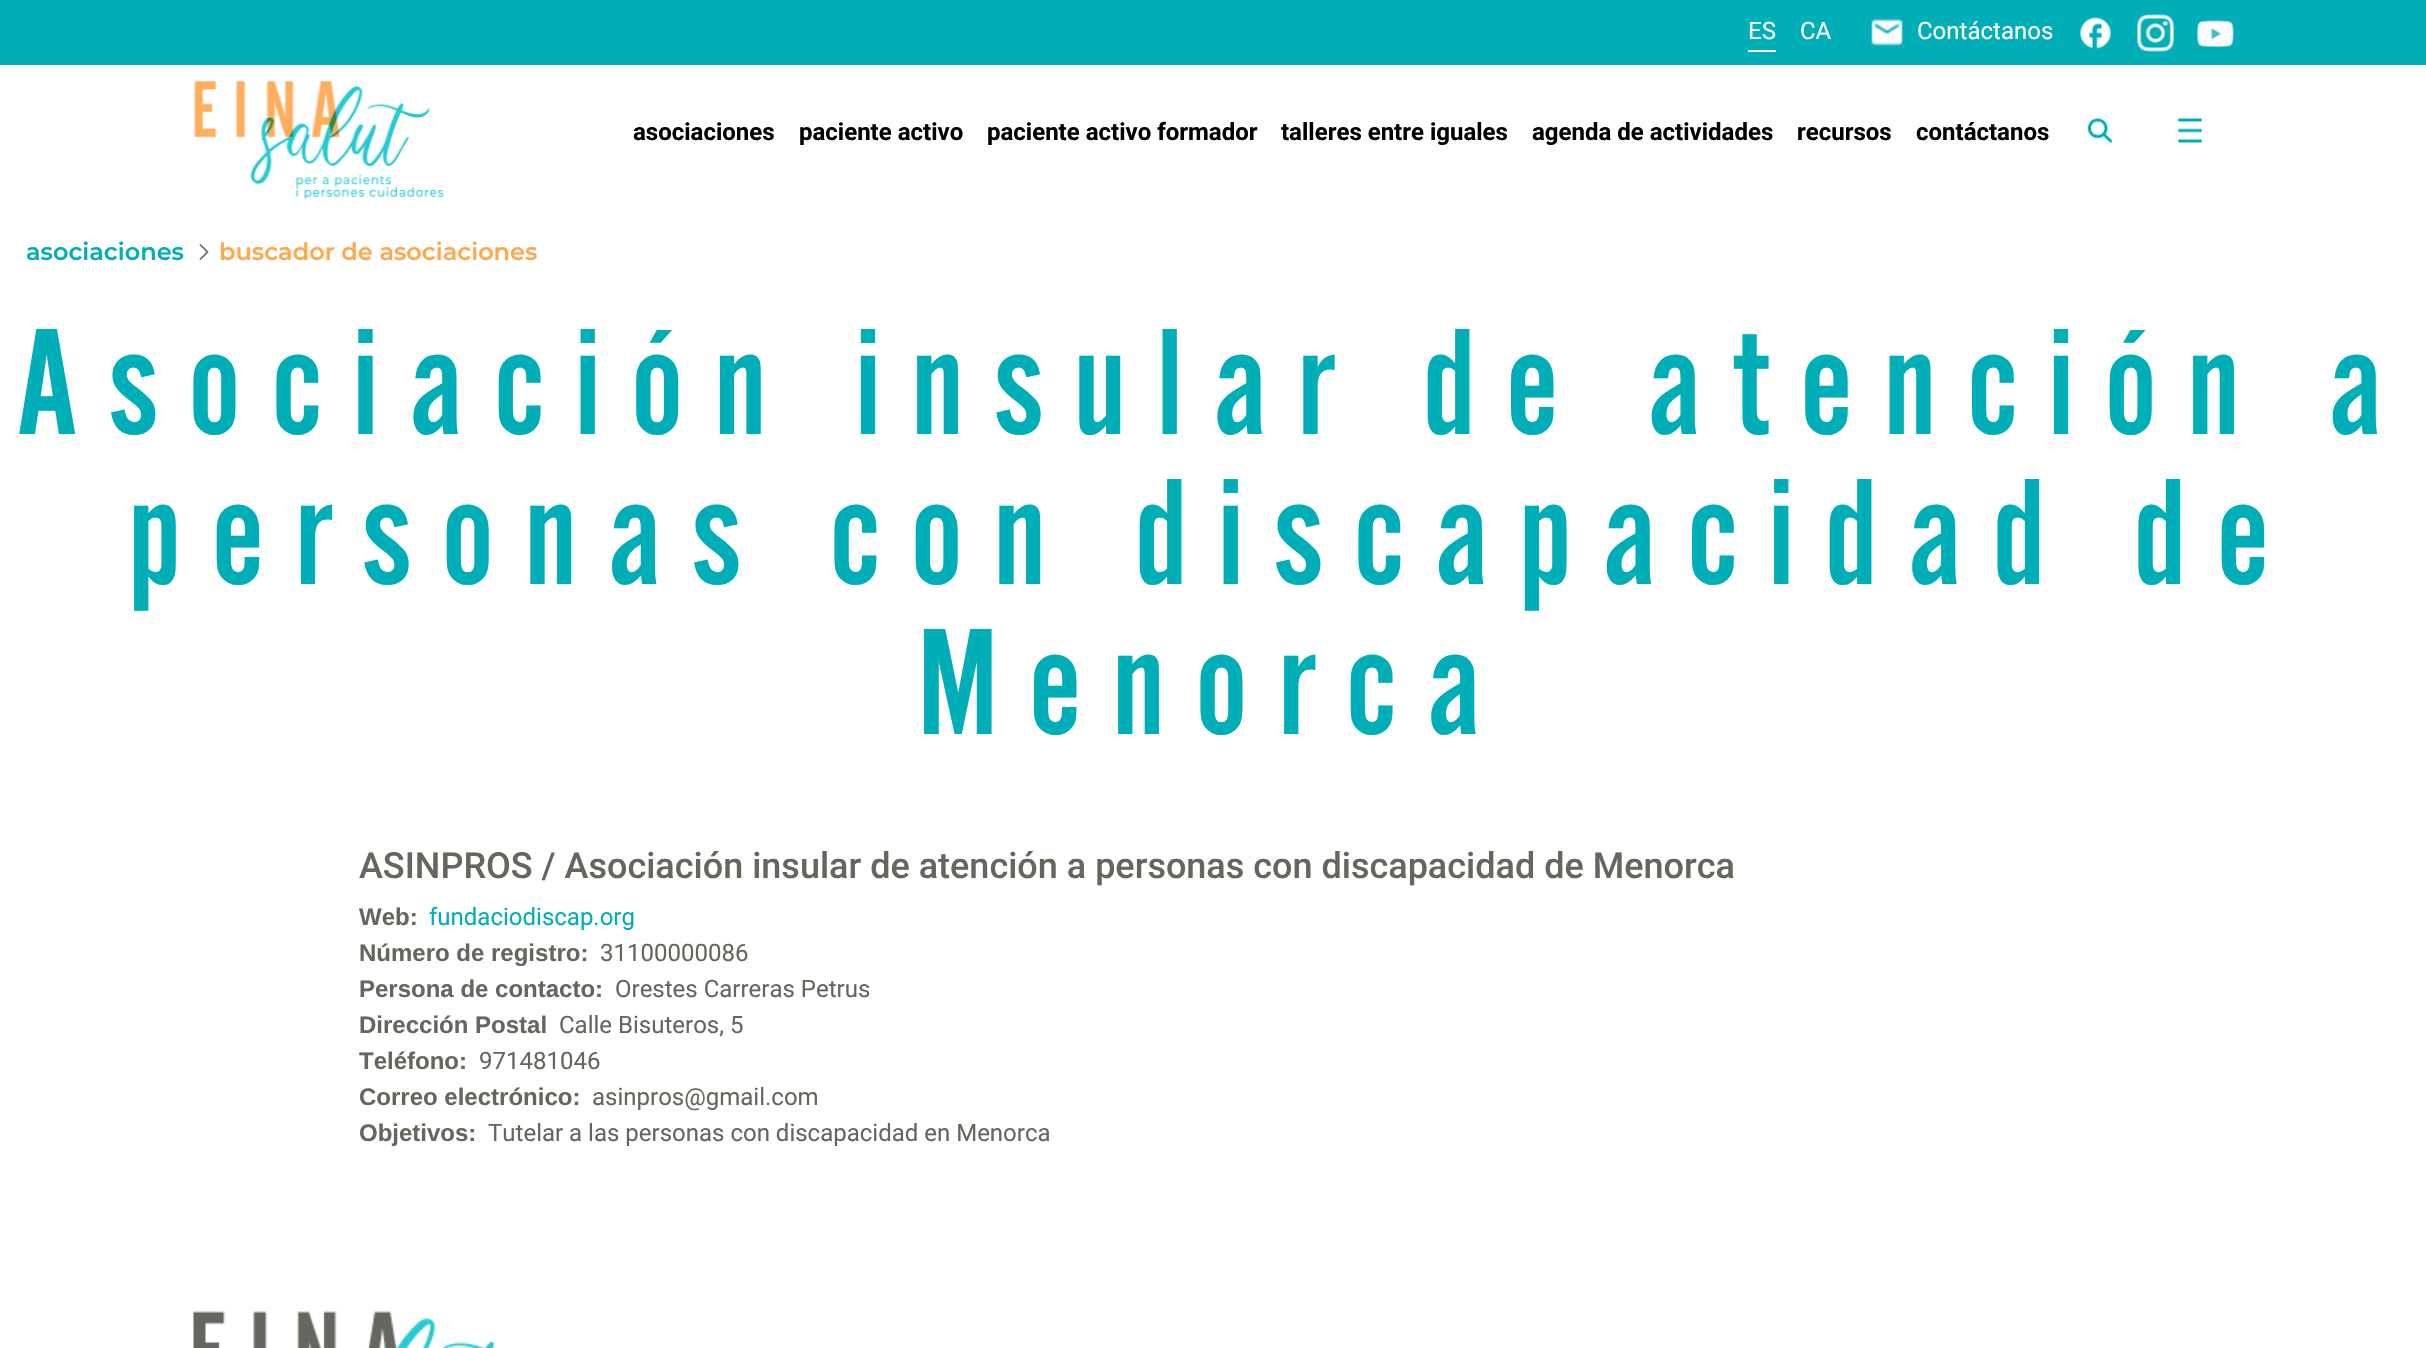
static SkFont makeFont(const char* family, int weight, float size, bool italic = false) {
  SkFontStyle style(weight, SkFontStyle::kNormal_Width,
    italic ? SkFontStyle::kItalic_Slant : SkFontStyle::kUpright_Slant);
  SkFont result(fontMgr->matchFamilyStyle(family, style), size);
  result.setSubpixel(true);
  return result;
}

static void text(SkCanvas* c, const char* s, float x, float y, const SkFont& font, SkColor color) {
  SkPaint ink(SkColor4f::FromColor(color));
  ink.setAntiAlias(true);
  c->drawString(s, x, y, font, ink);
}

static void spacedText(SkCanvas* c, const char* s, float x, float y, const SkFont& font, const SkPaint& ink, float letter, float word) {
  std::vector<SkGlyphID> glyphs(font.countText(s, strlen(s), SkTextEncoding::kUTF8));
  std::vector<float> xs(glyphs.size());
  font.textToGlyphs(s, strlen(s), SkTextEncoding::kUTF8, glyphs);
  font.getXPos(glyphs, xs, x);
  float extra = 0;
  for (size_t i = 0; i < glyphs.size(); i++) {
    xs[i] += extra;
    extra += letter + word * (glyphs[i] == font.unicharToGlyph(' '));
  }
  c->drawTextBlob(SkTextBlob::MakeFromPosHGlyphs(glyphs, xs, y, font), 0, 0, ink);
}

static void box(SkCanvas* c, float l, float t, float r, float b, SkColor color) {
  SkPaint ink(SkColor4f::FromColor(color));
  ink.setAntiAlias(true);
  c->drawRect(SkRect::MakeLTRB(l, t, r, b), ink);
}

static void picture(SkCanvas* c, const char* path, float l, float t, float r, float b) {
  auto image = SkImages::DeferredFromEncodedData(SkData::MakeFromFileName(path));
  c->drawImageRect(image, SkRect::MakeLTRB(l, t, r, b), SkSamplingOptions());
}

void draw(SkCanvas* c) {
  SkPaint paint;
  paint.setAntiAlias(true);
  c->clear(0xffffffff);
  box(c, 0, 0, 2426, 65, 0xff00aeb8);
  box(c, 1748, 50, 1776, 52, 0xffffffff);
  SkFont face1 = makeFont("Roboto", 400, 24);
  text(c, "ES", 1748, 39, face1, 0xffffffff);
  text(c, "CA", 1800, 39, face1, 0xffffffff);
  picture(c, "img_01.png", 1871, 18, 1903, 46);
  text(c, "Contáctanos", 1917, 39, face1, 0xffffffff);
  picture(c, "img_02.png", 2080, 17, 2111, 49);
  picture(c, "img_03.png", 2137, 14, 2174, 52);
  picture(c, "img_04.png", 2197, 20, 2234, 47);
  picture(c, "img_05.png", 194, 80, 444, 200);
  SkFont face2 = makeFont("Roboto", 700, 24);
  text(c, "asociaciones", 633, 140, face2, 0xff000000);
  text(c, "paciente activo", 799, 140, face2, 0xff000000);
  text(c, "paciente activo formador", 987, 140, face2, 0xff000000);
  text(c, "talleres entre iguales", 1281, 140, face2, 0xff000000);
  text(c, "agenda de actividades", 1532, 140, face2, 0xff000000);
  text(c, "recursos", 1797, 140, face2, 0xff000000);
  text(c, "contáctanos", 1916, 140, face2, 0xff000000);
  picture(c, "img_06.png", 2088, 118, 2112, 143);
  picture(c, "img_07.png", 2178, 118, 2202, 143);
  SkFont face3 = makeFont("Montserrat", 600, 24);
  text(c, "asociaciones", 26, 260, face3, 0xff00aeb8);
  picture(c, "img_08.png", 199, 244, 209, 260);
  text(c, "buscador de asociaciones", 219, 260, face3, 0xffffa84c);
  SkFont face4 = makeFont("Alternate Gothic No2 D", 400, 157.5f);
  paint.setColor(0xff00aeb8);
  spacedText(c, "Asociación insular de atención a", 15, 434, face4, paint, 30, 0);
  spacedText(c, "personas con discapacidad de", 128, 584, face4, paint, 30, 0);
  spacedText(c, "Menorca", 917, 734, face4, paint, 30, 0);
  SkFont face5 = makeFont("Roboto", 500, 36);
  text(c, "ASINPROS / Asociación insular de atención a personas con discapacidad de Menorca", 359, 878, face5, 0xff65665e);
  SkFont face6 = makeFont("Liberation Sans", 700, 24);
  text(c, "Web:", 359, 925, face6, 0xff65665e);
  text(c, "fundaciodiscap.org", 429, 925, face1, 0xff00aeb8);
  text(c, "Número de registro:", 359, 961, face6, 0xff65665e);
  text(c, "31100000086", 600, 961, face1, 0xff65665e);
  text(c, "Persona de contacto:", 359, 997, face6, 0xff65665e);
  text(c, "Orestes Carreras Petrus", 615, 997, face1, 0xff65665e);
  text(c, "Dirección Postal", 359, 1033, face6, 0xff65665e);
  text(c, "Calle Bisuteros, 5", 559, 1033, face1, 0xff65665e);
  text(c, "Teléfono:", 359, 1069, face6, 0xff65665e);
  text(c, "971481046", 479, 1069, face1, 0xff65665e);
  text(c, "Correo electrónico:", 359, 1105, face6, 0xff65665e);
  text(c, "asinpros@gmail.com", 592, 1105, face1, 0xff65665e);
  text(c, "Objetivos:", 359, 1141, face6, 0xff65665e);
  text(c, "Tutelar a las personas con discapacidad en Menorca", 488, 1141, face1, 0xff65665e);
  picture(c, "img_09.png", 193, 1311, 496, 1348);
}
